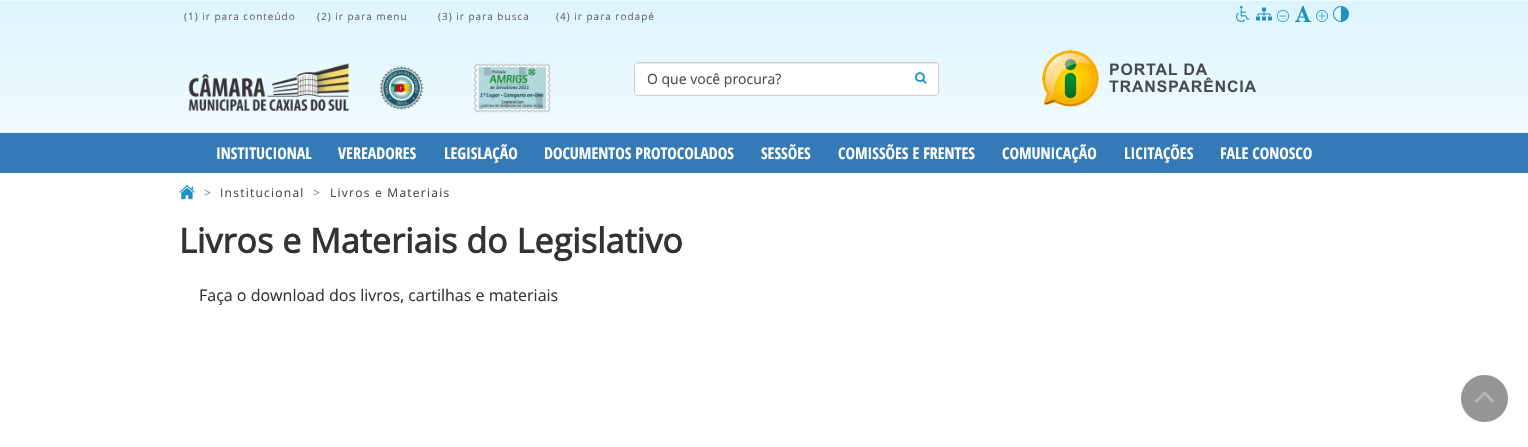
static SkFont makeFont(const char* family, int weight, float size, bool italic = false) {
  SkFontStyle style(weight, SkFontStyle::kNormal_Width,
    italic ? SkFontStyle::kItalic_Slant : SkFontStyle::kUpright_Slant);
  SkFont result(fontMgr->matchFamilyStyle(family, style), size);
  result.setSubpixel(true);
  return result;
}

static void text(SkCanvas* c, const char* s, float x, float y, const SkFont& font, SkColor color) {
  SkPaint ink(SkColor4f::FromColor(color));
  ink.setAntiAlias(true);
  c->drawString(s, x, y, font, ink);
}

static void spacedText(SkCanvas* c, const char* s, float x, float y, const SkFont& font, const SkPaint& ink, float letter, float word) {
  std::vector<SkGlyphID> glyphs(font.countText(s, strlen(s), SkTextEncoding::kUTF8));
  std::vector<float> xs(glyphs.size());
  font.textToGlyphs(s, strlen(s), SkTextEncoding::kUTF8, glyphs);
  font.getXPos(glyphs, xs, x);
  float extra = 0;
  for (size_t i = 0; i < glyphs.size(); i++) {
    xs[i] += extra;
    extra += letter + word * (glyphs[i] == font.unicharToGlyph(' '));
  }
  c->drawTextBlob(SkTextBlob::MakeFromPosHGlyphs(glyphs, xs, y, font), 0, 0, ink);
}

static void box(SkCanvas* c, float l, float t, float r, float b, SkColor color) {
  SkPaint ink(SkColor4f::FromColor(color));
  ink.setAntiAlias(true);
  c->drawRect(SkRect::MakeLTRB(l, t, r, b), ink);
}

static void roundBox(SkCanvas* c, float l, float t, float r, float b, float radius, SkColor color) {
  SkPaint ink(SkColor4f::FromColor(color));
  ink.setAntiAlias(true);
  c->drawRoundRect(SkRect::MakeLTRB(l, t, r, b), radius, radius, ink);
}

static void picture(SkCanvas* c, const char* path, float l, float t, float r, float b) {
  auto image = SkImages::DeferredFromEncodedData(SkData::MakeFromFileName(path));
  c->drawImageRect(image, SkRect::MakeLTRB(l, t, r, b), SkSamplingOptions());
}

void draw(SkCanvas* c) {
  SkPaint paint;
  paint.setAntiAlias(true);
  c->clear(0xffffffff);
  {
    const SkColor colors[] = {0xfff0fbff, 0xffddf5ff};
    const float stops[] = {0, 1};
    const SkPoint ends[] = {{764, 1}, {764, -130}};
    paint.setShader(SkGradientShader::MakeLinear(ends, colors, stops, 2, SkTileMode::kClamp));
    paint.setAlpha(255);
  }
  c->drawRect(SkRect::MakeLTRB(0, 0, 1528, 1), paint);
  {
    const SkColor colors[] = {0xfff0fbff, 0xffddf5ff};
    const float stops[] = {0, 1};
    const SkPoint ends[] = {{764, 132}, {764, 1}};
    paint.setShader(SkGradientShader::MakeLinear(ends, colors, stops, 2, SkTileMode::kClamp));
    paint.setAlpha(255);
  }
  c->drawRect(SkRect::MakeLTRB(0, 1, 1528, 132), paint);
  {
    const SkColor colors[] = {0xfff0fbff, 0xffddf5ff};
    const float stops[] = {0, 1};
    const SkPoint ends[] = {{764, 263}, {764, 132}};
    paint.setShader(SkGradientShader::MakeLinear(ends, colors, stops, 2, SkTileMode::kClamp));
    paint.setAlpha(255);
  }
  c->drawRect(SkRect::MakeLTRB(0, 132, 1528, 133), paint);
  SkFont face1 = makeFont("Open Sans", 400, 10);
  paint.setShader(nullptr);
  paint.setColor(0xff666666);
  spacedText(c, "(1) ir para conteúdo", 184, 20, face1, paint, 1, 0);
  spacedText(c, "(2) ir para menu", 317, 20, face1, paint, 1, 0);
  spacedText(c, "(3) ir para busca", 438, 20, face1, paint, 1, 0);
  spacedText(c, "(4) ir para rodapé", 556, 20, face1, paint, 1, 0);
  picture(c, "img_01.png", 1236, 6, 1250, 22);
  picture(c, "img_02.png", 1256, 7, 1272, 21);
  picture(c, "img_03.png", 1277, 10, 1289, 22);
  picture(c, "img_04.png", 1295, 6, 1311, 22);
  picture(c, "img_05.png", 1316, 10, 1328, 22);
  picture(c, "img_06.png", 1333, 6, 1349, 22);
  picture(c, "img_07.png", 188, 63, 551, 113);
  roundBox(c, 634, 62, 939, 96, 4, 0xffffffff);
  paint.setColor(0xffececec);
  c->drawPath(SkPathBuilder().moveTo(638, 64).lineTo(935, 64).cubicTo(937, 64, 938, 65, 938, 67).lineTo(937, 64).lineTo(936, 63).lineTo(638, 63).cubicTo(636, 63, 635, 65, 635, 67).cubicTo(635, 65, 636, 64, 638, 64).close().detach(), paint);
  paint.setStyle(SkPaint::kStroke_Style);
  paint.setStrokeWidth(1);
  paint.setColor(0xffcdcdcd);
  c->drawRoundRect(SkRect::MakeLTRB(634.5f, 62.5f, 938.5f, 95.5f), 3.5f, 3.5f, paint);
  SkFont face2 = makeFont("Open Sans", 400, 14);
  text(c, "O que você procura?", 647, 84, face2, 0xff454a4d);
  picture(c, "img_08.png", 915, 72, 927, 84);
  picture(c, "img_09.png", 1042, 50, 1256, 107);
  box(c, 0, 133, 1528, 173, 0xff337ab7);
  SkFont face3 = makeFont("Open Sans Condensed", 700, 16);
  text(c, "INSTITUCIONAL", 216, 159, face3, 0xffffffff);
  text(c, "VEREADORES", 338, 159, face3, 0xffffffff);
  text(c, "LEGISLAÇÃO", 444, 159, face3, 0xffffffff);
  text(c, "DOCUMENTOS PROTOCOLADOS", 544, 159, face3, 0xffffffff);
  text(c, "SESSÕES", 761, 159, face3, 0xffffffff);
  text(c, "COMISSÕES E FRENTES", 838, 159, face3, 0xffffffff);
  text(c, "COMUNICAÇÃO", 1002, 159, face3, 0xffffffff);
  text(c, "LICITAÇÕES", 1124, 159, face3, 0xffffffff);
  text(c, "FALE CONOSCO", 1220, 159, face3, 0xffffffff);
  picture(c, "img_10.png", 179, 185, 195, 200);
  SkFont face4 = makeFont("Open Sans", 400, 12);
  paint.setStyle(SkPaint::kFill_Style);
  paint.setColor(0xff797e80);
  spacedText(c, ">", 204, 197, face4, paint, 1.25f, 0);
  paint.setColor(0xff454a4d);
  spacedText(c, "Institucional", 220, 197, face4, paint, 1.25f, 0);
  paint.setColor(0xff797e80);
  spacedText(c, ">", 313, 197, face4, paint, 1.25f, 0);
  paint.setColor(0xff454a4d);
  spacedText(c, "Livros e Materiais", 330, 197, face4, paint, 1.25f, 0);
  SkFont face5 = makeFont("Open Sans", 700, 34.1f);
  text(c, "Livros e Materiais do Legislativo", 179, 253, face5, 0xff333333);
  SkFont face6 = makeFont("Open Sans", 400, 16);
  text(c, "Faça o download dos livros, cartilhas e materiais", 199, 301, face6, 0xff333333);
  picture(c, "img_11.png", 1461, 375, 1508, 422);
}
